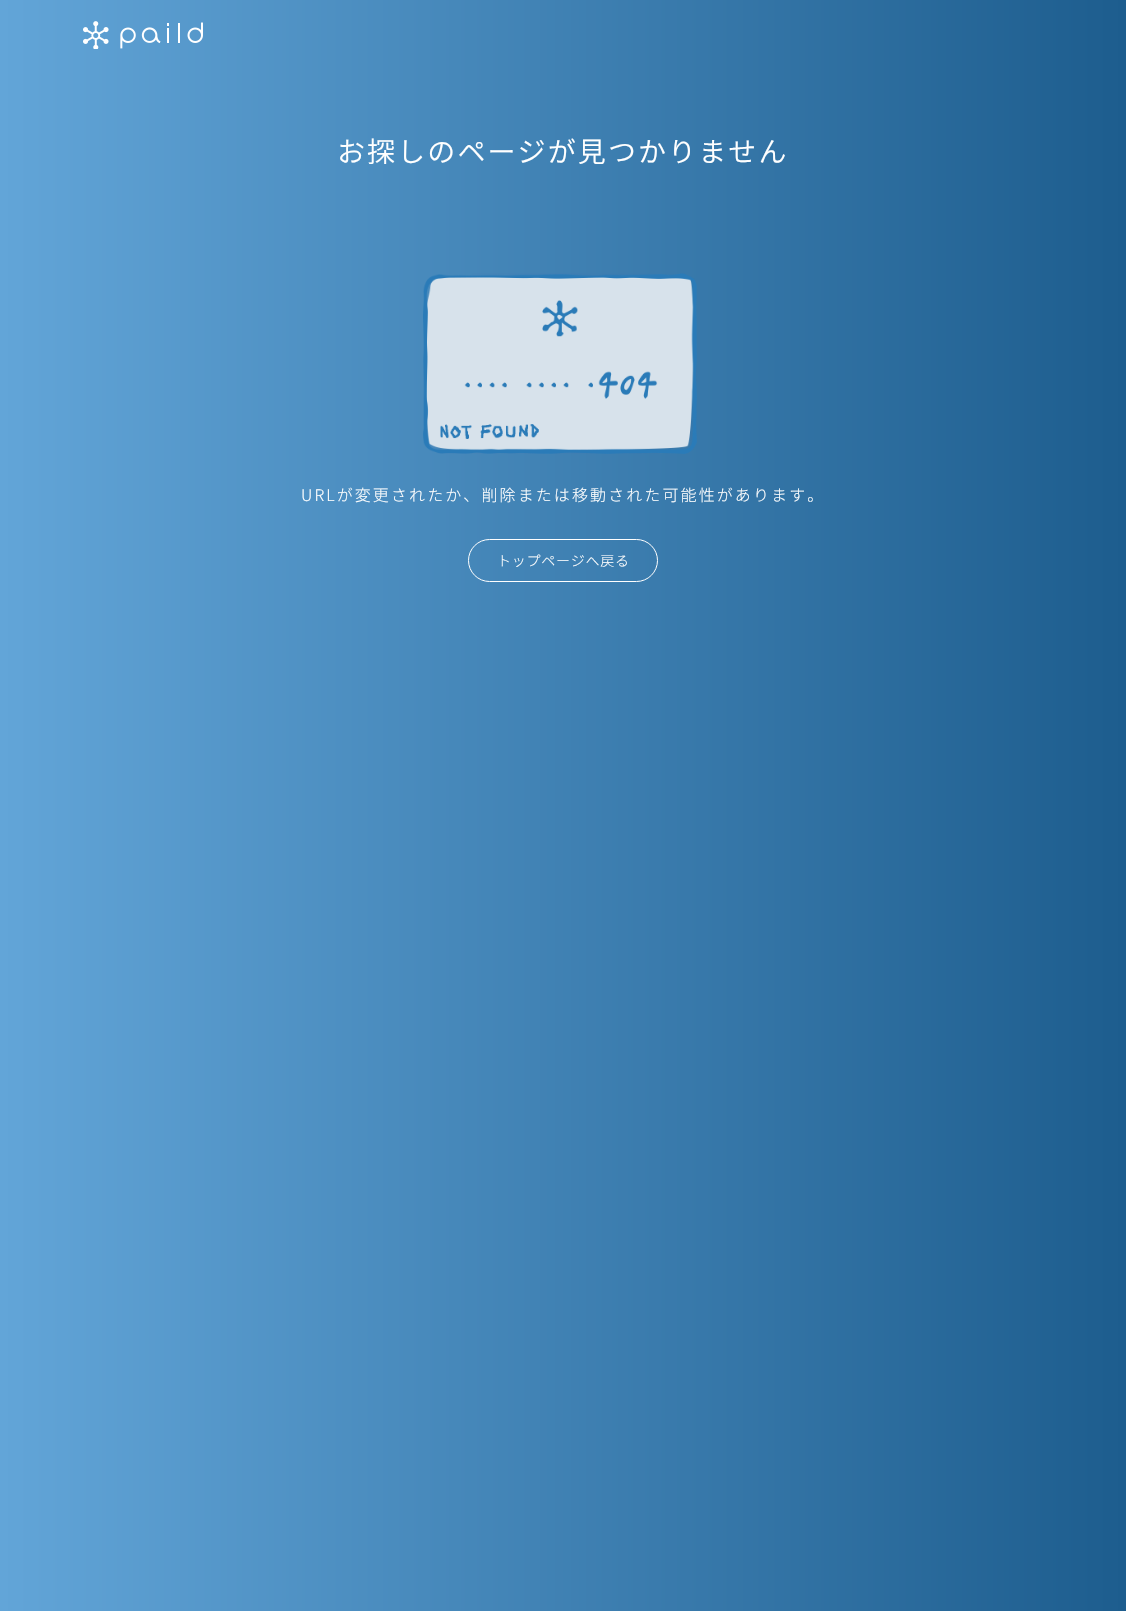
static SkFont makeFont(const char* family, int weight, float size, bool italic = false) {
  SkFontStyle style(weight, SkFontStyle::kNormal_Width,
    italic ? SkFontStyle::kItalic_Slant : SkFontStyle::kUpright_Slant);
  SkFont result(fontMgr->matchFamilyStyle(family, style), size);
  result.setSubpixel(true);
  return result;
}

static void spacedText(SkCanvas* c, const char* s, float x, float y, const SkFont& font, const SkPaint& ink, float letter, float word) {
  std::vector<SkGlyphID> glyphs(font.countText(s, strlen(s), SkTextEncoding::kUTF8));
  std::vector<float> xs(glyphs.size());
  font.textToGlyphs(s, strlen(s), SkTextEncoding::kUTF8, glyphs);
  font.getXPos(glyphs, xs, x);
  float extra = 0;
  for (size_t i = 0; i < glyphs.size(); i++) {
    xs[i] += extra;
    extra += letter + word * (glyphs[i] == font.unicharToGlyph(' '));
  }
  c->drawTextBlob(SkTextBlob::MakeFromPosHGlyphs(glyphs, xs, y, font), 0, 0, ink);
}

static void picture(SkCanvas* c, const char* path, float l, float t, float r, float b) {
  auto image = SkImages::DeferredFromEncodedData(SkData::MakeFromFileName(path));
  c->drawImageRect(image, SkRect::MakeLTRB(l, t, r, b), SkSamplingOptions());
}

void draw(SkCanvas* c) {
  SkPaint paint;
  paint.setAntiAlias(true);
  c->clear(0xffffffff);
  {
    const SkColor colors[] = {0xff62a5d8, 0xff1d5d8e};
    const float stops[] = {0, 1};
    const SkPoint ends[] = {{0, 1202}, {1126, 1202}};
    paint.setShader(SkGradientShader::MakeLinear(ends, colors, stops, 2, SkTileMode::kClamp));
    paint.setAlpha(255);
  }
  c->drawRect(SkRect::MakeLTRB(0, 0, 1126, 1611), paint);
  picture(c, "img_01.png", 83, 21, 203, 49);
  SkFont face1 = makeFont("Noto Sans JP", 300, 28);
  paint.setShader(nullptr);
  paint.setColor(0xffffffff);
  spacedText(c, "お探しのページが見つかりません", 337, 162, face1, paint, 2.1f, 0);
  picture(c, "img_02.png", 423, 273, 697, 454);
  SkFont face2 = makeFont("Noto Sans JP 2", 300, 16);
  spacedText(c, "URLが変更されたか、削除または移動された可能性があります。", 301, 501, face2, paint, 2.1f, 0);
  paint.setStyle(SkPaint::kStroke_Style);
  paint.setStrokeWidth(1);
  c->drawRoundRect(SkRect::MakeLTRB(468.5f, 539.5f, 657.5f, 581.5f), 21, 21, paint);
  SkFont face3 = makeFont("Noto Sans JP 2", 300, 14);
  paint.setStyle(SkPaint::kFill_Style);
  spacedText(c, "トップページへ戻る", 497, 566, face3, paint, 0.75f, 0);
}
